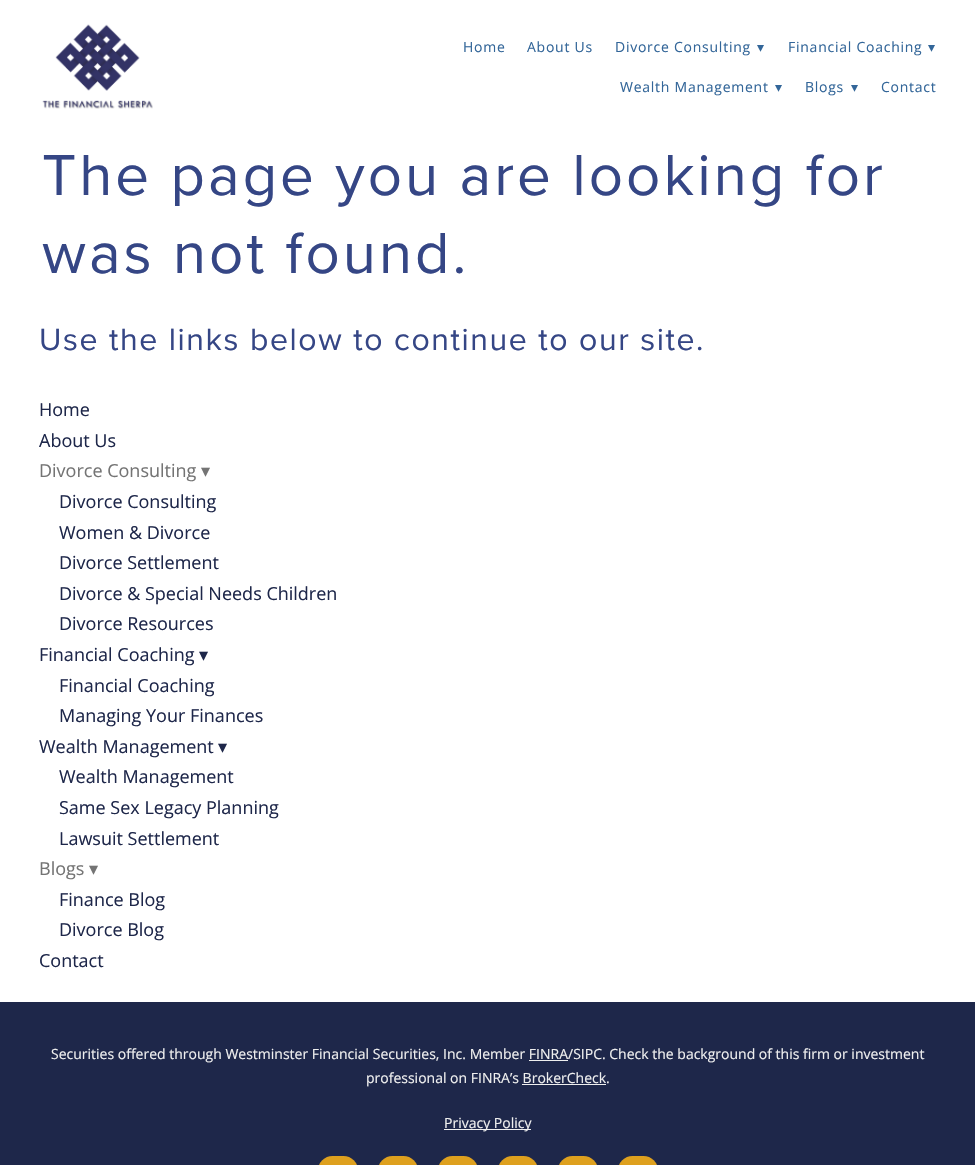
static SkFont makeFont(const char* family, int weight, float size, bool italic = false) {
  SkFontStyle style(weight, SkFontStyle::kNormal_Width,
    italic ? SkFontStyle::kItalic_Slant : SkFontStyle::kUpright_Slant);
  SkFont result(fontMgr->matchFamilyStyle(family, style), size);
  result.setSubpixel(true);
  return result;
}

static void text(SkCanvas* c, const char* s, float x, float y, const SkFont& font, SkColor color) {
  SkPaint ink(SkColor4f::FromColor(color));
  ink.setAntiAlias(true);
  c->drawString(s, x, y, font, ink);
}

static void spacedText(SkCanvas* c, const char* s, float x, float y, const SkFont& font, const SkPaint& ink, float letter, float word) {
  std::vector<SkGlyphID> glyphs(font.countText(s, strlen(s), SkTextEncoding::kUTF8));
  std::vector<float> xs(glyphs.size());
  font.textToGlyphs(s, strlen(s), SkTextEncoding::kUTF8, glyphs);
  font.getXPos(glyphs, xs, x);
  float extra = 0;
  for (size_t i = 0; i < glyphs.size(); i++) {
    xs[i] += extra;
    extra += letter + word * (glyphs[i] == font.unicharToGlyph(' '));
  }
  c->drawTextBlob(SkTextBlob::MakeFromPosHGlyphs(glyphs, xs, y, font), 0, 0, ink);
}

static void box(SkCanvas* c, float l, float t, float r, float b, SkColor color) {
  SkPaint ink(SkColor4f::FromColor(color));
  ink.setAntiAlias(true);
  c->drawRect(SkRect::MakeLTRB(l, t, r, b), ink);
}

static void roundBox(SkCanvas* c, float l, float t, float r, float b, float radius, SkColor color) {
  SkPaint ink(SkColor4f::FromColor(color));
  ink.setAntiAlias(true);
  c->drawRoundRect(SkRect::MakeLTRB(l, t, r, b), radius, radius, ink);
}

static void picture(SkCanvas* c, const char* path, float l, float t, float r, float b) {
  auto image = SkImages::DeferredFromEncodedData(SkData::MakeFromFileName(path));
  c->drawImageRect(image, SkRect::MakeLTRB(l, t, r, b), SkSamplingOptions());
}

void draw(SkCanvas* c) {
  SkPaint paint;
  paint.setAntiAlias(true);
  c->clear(0xffffffff);
  picture(c, "img_01.png", 42, 24, 153, 109);
  SkFont face1 = makeFont("Open Sans", 400, 14);
  paint.setColor(0xff336699);
  spacedText(c, "Home", 463, 52, face1, paint, 0.75f, 0);
  spacedText(c, "About Us", 527, 52, face1, paint, 0.75f, 0);
  spacedText(c, "Divorce Consulting", 615, 52, face1, paint, 0.75f, 0);
  SkFont face2 = makeFont("DejaVu Sans", 400, 14);
  spacedText(c, "▾", 757, 52, face2, paint, 0.75f, 0);
  spacedText(c, "Financial Coaching", 788, 52, face1, paint, 0.75f, 0);
  spacedText(c, "▾", 928, 52, face2, paint, 0.75f, 0);
  spacedText(c, "Wealth Management", 620, 92, face1, paint, 0.75f, 0);
  spacedText(c, "▾", 775, 92, face2, paint, 0.75f, 0);
  spacedText(c, "Blogs", 805, 92, face1, paint, 0.75f, 0);
  spacedText(c, "▾", 851, 92, face2, paint, 0.75f, 0);
  spacedText(c, "Contact", 881, 92, face1, paint, 0.75f, 0);
  SkFont face3 = makeFont("Proxima Nova", 400, 60);
  paint.setColor(0xff354685);
  spacedText(c, "The page you are looking for", 42, 195, face3, paint, 3, 0);
  spacedText(c, "was not found.", 42, 273, face3, paint, 3, 0);
  SkFont face4 = makeFont("Proxima Nova", 400, 32);
  spacedText(c, "Use the links below to continue to our site.", 39, 350, face4, paint, 1.6f, 0);
  SkFont face5 = makeFont("Open Sans", 400, 18);
  text(c, "Home", 39, 416, face5, 0xff1e274a);
  text(c, "About Us", 39, 447, face5, 0xff1e274a);
  text(c, "Divorce Consulting", 39, 477, face5, 0xff747474);
  SkFont face6 = makeFont("DejaVu Sans", 400, 18);
  text(c, "▾", 201, 477, face6, 0xff747474);
  text(c, "Divorce Consulting", 59, 508, face5, 0xff1e274a);
  text(c, "Women & Divorce", 59, 539, face5, 0xff1e274a);
  text(c, "Divorce Settlement", 59, 569, face5, 0xff1e274a);
  text(c, "Divorce & Special Needs Children", 59, 600, face5, 0xff1e274a);
  text(c, "Divorce Resources", 59, 630, face5, 0xff1e274a);
  text(c, "Financial Coaching", 39, 661, face5, 0xff1e274a);
  text(c, "▾", 199, 661, face6, 0xff1e274a);
  text(c, "Financial Coaching", 59, 692, face5, 0xff1e274a);
  text(c, "Managing Your Finances", 59, 722, face5, 0xff1e274a);
  text(c, "Wealth Management", 39, 753, face5, 0xff1e274a);
  text(c, "▾", 218, 753, face6, 0xff1e274a);
  text(c, "Wealth Management", 59, 783, face5, 0xff1e274a);
  text(c, "Same Sex Legacy Planning", 59, 814, face5, 0xff1e274a);
  text(c, "Lawsuit Settlement", 59, 845, face5, 0xff1e274a);
  text(c, "Blogs", 39, 875, face5, 0xff747474);
  text(c, "▾", 89, 875, face6, 0xff747474);
  text(c, "Finance Blog", 59, 906, face5, 0xff1e274a);
  text(c, "Divorce Blog", 59, 936, face5, 0xff1e274a);
  text(c, "Contact", 39, 967, face5, 0xff1e274a);
  box(c, 0, 1002, 975, 1165, 0xff1e274a);
  text(c, "Securities offered through Westminster Financial Securities, Inc. Member FINRA", 51, 1059, face1, 0xffefefef);
  box(c, 529, 1060, 568, 1061, 0xffefefef);
  text(c, "/SIPC. Check the background of this firm or investment", 568, 1059, face1, 0xffefefef);
  text(c, "professional on FINRA’s BrokerCheck.", 366, 1083, face1, 0xffefefef);
  box(c, 522, 1084, 606, 1085, 0xffefefef);
  box(c, 444, 1129, 531, 1130, 0xffefefef);
  text(c, "Privacy Policy", 444, 1128, face1, 0xffefefef);
  roundBox(c, 318, 1156, 358, 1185, 20, 0xffdea01e);
  roundBox(c, 378, 1156, 418, 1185, 20, 0xffdea01e);
  roundBox(c, 438, 1156, 478, 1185, 20, 0xffdea01e);
  roundBox(c, 498, 1156, 538, 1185, 20, 0xffdea01e);
  roundBox(c, 558, 1156, 598, 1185, 20, 0xffdea01e);
  roundBox(c, 618, 1156, 658, 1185, 20, 0xffdea01e);
}
